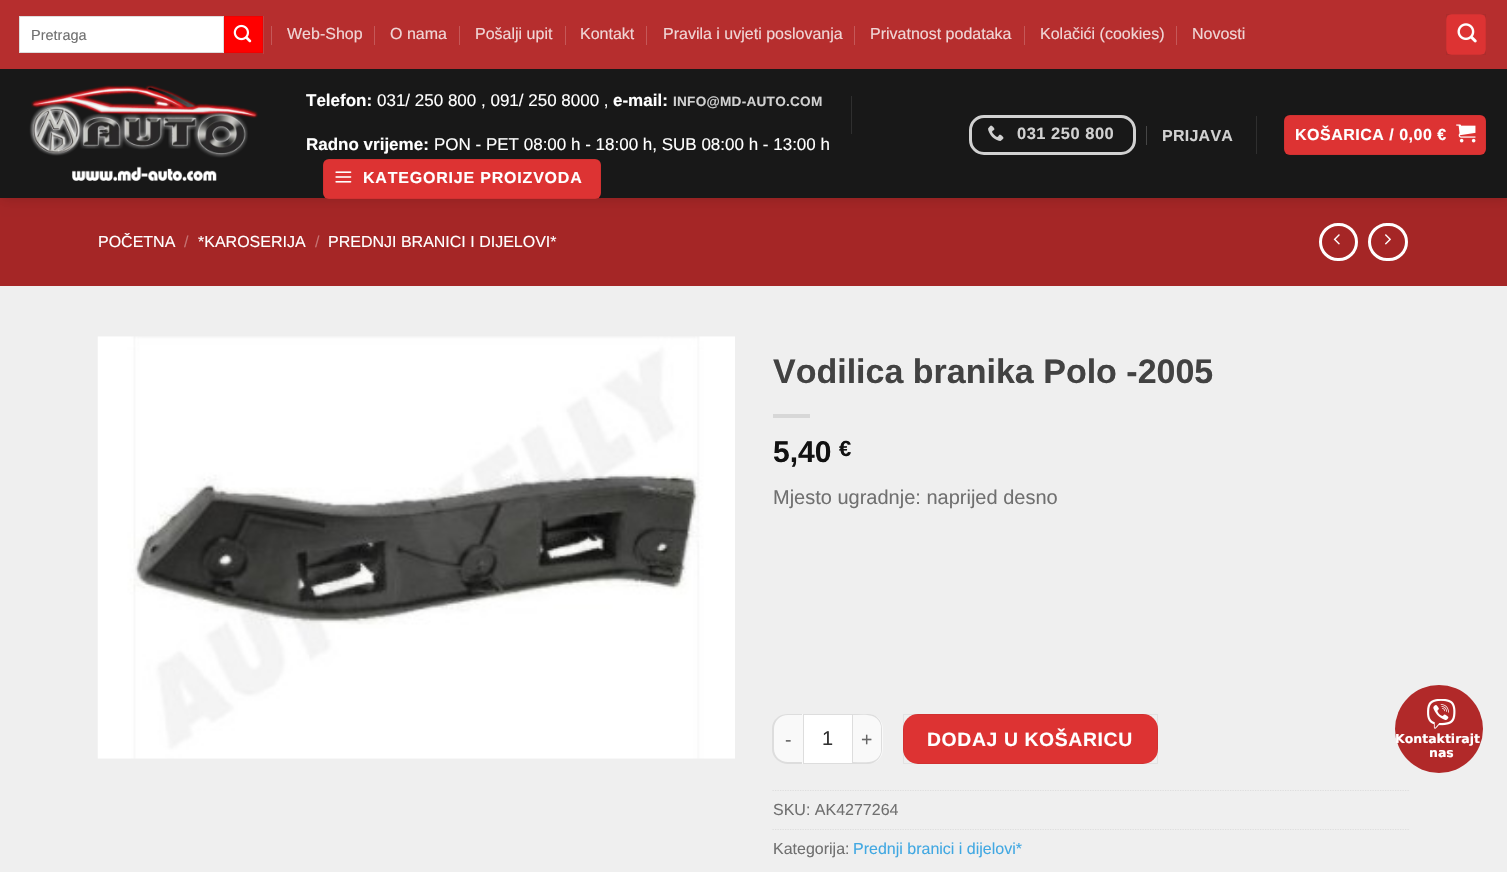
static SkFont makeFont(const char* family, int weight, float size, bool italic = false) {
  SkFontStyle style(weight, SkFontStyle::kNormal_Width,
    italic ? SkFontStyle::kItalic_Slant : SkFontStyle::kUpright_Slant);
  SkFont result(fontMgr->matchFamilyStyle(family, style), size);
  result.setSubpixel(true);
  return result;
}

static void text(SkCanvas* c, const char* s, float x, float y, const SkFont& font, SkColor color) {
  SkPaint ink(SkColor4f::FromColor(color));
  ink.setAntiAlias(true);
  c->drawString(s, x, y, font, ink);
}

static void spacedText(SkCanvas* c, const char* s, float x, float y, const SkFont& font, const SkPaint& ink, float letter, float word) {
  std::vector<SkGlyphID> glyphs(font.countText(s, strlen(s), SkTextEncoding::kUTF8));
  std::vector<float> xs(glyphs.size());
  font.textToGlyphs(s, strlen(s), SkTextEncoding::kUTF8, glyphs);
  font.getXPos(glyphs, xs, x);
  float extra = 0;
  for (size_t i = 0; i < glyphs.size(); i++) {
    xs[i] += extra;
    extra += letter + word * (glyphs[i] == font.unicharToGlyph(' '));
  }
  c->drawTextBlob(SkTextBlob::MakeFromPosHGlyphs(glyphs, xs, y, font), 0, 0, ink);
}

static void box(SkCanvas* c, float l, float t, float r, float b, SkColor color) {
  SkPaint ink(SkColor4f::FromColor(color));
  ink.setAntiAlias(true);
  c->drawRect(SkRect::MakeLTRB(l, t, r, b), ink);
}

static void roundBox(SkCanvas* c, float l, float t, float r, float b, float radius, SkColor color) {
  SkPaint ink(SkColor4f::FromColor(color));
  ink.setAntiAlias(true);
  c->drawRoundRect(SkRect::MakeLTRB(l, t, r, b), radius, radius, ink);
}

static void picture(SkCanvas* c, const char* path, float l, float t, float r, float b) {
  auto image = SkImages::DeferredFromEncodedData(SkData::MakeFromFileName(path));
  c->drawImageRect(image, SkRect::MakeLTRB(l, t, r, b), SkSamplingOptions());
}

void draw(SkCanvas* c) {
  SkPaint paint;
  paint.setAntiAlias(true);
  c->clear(0xffefefef);
  box(c, 0, 198, 1507, 286, 0xffa52626);
  c->save();
  c->clipPath(SkPathBuilder(SkPathFillType::kEvenOdd).moveTo(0, 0).lineTo(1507, 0).lineTo(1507, 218).lineTo(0, 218).close().moveTo(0, 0).lineTo(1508, 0).lineTo(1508, 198).lineTo(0, 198).close().detach(), true);
  paint.setColor(0x26000000);
  paint.setMaskFilter(SkMaskFilter::MakeBlur(kNormal_SkBlurStyle, 6));
  c->drawRect(SkRect::MakeLTRB(1, 1, 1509, 199), paint);
  paint.setMaskFilter(nullptr);
  c->restore();
  box(c, 0, 0, 1507, 69, 0xffb62e2e);
  paint.setColor(0xffffffff);
  c->drawRect(SkRect::MakeLTRB(19.5f, 16.5f, 223.5f, 52.5f), paint);
  paint.setStyle(SkPaint::kStroke_Style);
  paint.setStrokeWidth(1);
  paint.setColor(0xffdddddd);
  c->drawRect(SkRect::MakeLTRB(19.5f, 16.5f, 223.5f, 52.5f), paint);
  SkFont face1 = makeFont("Liberation Sans", 400, 14.5f);
  text(c, "Pretraga", 31, 40, face1, 0xff707070);
  paint.setStyle(SkPaint::kFill_Style);
  paint.setColor(0xffff0000);
  c->drawRect(SkRect::MakeLTRB(224.5f, 16.5f, 262.5f, 52.5f), paint);
  paint.setStyle(SkPaint::kStroke_Style);
  paint.setColor(0xfff20000);
  c->drawRect(SkRect::MakeLTRB(224.5f, 16.5f, 262.5f, 52.5f), paint);
  picture(c, "img_01.png", 233, 24, 252, 43);
  box(c, 263, 16, 264, 54, 0xffbd4343);
  box(c, 271, 26, 272, 45, 0xffc55858);
  SkFont face2 = makeFont("Liberation Sans", 400, 16);
  text(c, "Web-Shop", 287, 39, face2, 0xfff0d5d5);
  box(c, 374, 26, 375, 45, 0xffc55858);
  text(c, "O nama", 390, 39, face2, 0xfff0d5d5);
  box(c, 459, 26, 460, 45, 0xffc55858);
  text(c, "Pošalji upit", 475, 39, face2, 0xfff0d5d5);
  box(c, 565, 26, 566, 45, 0xffc55858);
  text(c, "Kontakt", 580, 39, face2, 0xfff0d5d5);
  box(c, 646, 26, 647, 45, 0xffc55858);
  text(c, "Pravila i uvjeti poslovanja", 663, 39, face2, 0xfff0d5d5);
  box(c, 854, 26, 855, 45, 0xffc55858);
  text(c, "Privatnost podataka", 870, 39, face2, 0xfff0d5d5);
  box(c, 1024, 26, 1025, 45, 0xffc55858);
  text(c, "Kolačići (cookies)", 1040, 39, face2, 0xfff0d5d5);
  box(c, 1176, 26, 1177, 45, 0xffc55858);
  text(c, "Novosti", 1192, 39, face2, 0xfff0d5d5);
  roundBox(c, 1446, 14, 1486, 55, 6, 0xffdd3333);
  paint.setColor(0x0d000000);
  c->drawRect(SkRect::MakeLTRB(1446.5f, 14.5f, 1485.5f, 54.5f), paint);
  picture(c, "img_02.png", 1457, 23, 1477, 43);
  box(c, 0, 69, 1507, 198, 0xe6000000);
  picture(c, "img_03.png", 29, 85, 258, 181);
  SkFont face3 = makeFont("Liberation Sans", 700, 17);
  text(c, "Telefon:", 306, 106, face3, 0xffffffff);
  SkFont face4 = makeFont("Liberation Sans", 400, 17);
  text(c, "031/ 250 800 , 091/ 250 8000 ,", 377, 106, face4, 0xffffffff);
  text(c, "e-mail:", 613, 106, face3, 0xffffffff);
  SkFont face5 = makeFont("Liberation Sans", 700, 13.6f);
  paint.setStyle(SkPaint::kFill_Style);
  paint.setColor(0xffd1d1d1);
  spacedText(c, "INFO@MD-AUTO.COM", 673, 106, face5, paint, 0.25f, 0);
  text(c, "Radno vrijeme:", 306, 150, face3, 0xffffffff);
  text(c, "PON - PET 08:00 h - 18:00 h, SUB 08:00 h - 13:00 h", 434, 150, face4, 0xffffffff);
  box(c, 851, 96, 852, 134, 0xff2f2f2f);
  roundBox(c, 323, 159, 601, 199, 6, 0xffdd3333);
  paint.setStyle(SkPaint::kStroke_Style);
  paint.setColor(0x0d000000);
  c->drawRect(SkRect::MakeLTRB(323.5f, 159.5f, 600.5f, 198.5f), paint);
  picture(c, "img_04.png", 335, 171, 352, 183);
  SkFont face6 = makeFont("Liberation Sans", 700, 16);
  paint.setStyle(SkPaint::kFill_Style);
  paint.setColor(0xffffffff);
  spacedText(c, "KATEGORIJE PROIZVODA", 363, 183, face6, paint, 0.8f, 0);
  paint.setStyle(SkPaint::kStroke_Style);
  paint.setStrokeWidth(3);
  paint.setColor(0xffd1d1d1);
  c->drawRoundRect(SkRect::MakeLTRB(970.5f, 116.5f, 1134.5f, 153.5f), 13.5f, 13.5f, paint);
  picture(c, "img_05.png", 988, 125, 1004, 141);
  SkFont face7 = makeFont("Liberation Sans", 700, 16.5f);
  paint.setStyle(SkPaint::kFill_Style);
  spacedText(c, "031 250 800", 1017, 139, face7, paint, 0.5f, 0);
  box(c, 1146, 126, 1147, 145, 0xff464646);
  spacedText(c, "PRIJAVA", 1162, 141, face6, paint, 0.25f, 0);
  box(c, 1256, 116, 1257, 154, 0xff2f2f2f);
  roundBox(c, 1284, 115, 1486, 155, 6, 0xffdd3333);
  paint.setStyle(SkPaint::kStroke_Style);
  paint.setStrokeWidth(1);
  paint.setColor(0x0d000000);
  c->drawRect(SkRect::MakeLTRB(1284.5f, 115.5f, 1485.5f, 154.5f), paint);
  paint.setStyle(SkPaint::kFill_Style);
  paint.setColor(0xffffffff);
  spacedText(c, "KOŠARICA / 0,00 €", 1295, 140, face6, paint, 0.5f, 0);
  picture(c, "img_06.png", 1456, 124, 1476, 143);
  text(c, "POČETNA", 98, 247, face2, 0xffffffff);
  text(c, "/", 184, 247, face2, 0xffc57272);
  text(c, "*KAROSERIJA", 198, 247, face2, 0xffffffff);
  text(c, "/", 315, 247, face2, 0xffc57272);
  text(c, "PREDNJI BRANICI I DIJELOVI*", 328, 247, face2, 0xffffffff);
  paint.setStyle(SkPaint::kStroke_Style);
  paint.setStrokeWidth(3);
  c->drawRoundRect(SkRect::MakeLTRB(1320.5f, 224.5f, 1356.5f, 259.5f), 17.5f, 17.5f, paint);
  picture(c, "img_07.png", 1333, 234, 1340, 245);
  c->drawRoundRect(SkRect::MakeLTRB(1369.5f, 224.5f, 1406.5f, 259.5f), 17.5f, 17.5f, paint);
  picture(c, "img_08.png", 1385, 234, 1391, 245);
  picture(c, "img_09.png", 97, 336, 735, 759);
  SkFont face8 = makeFont("Liberation Sans", 700, 34);
  text(c, "Vodilica branika Polo -2005", 773, 383, face8, 0xff424242);
  box(c, 773, 414, 810, 418, 0xffd7d7d7);
  SkFont face9 = makeFont("Liberation Sans", 700, 30);
  text(c, "5,40", 773, 462, face9, 0xff111111);
  SkFont face10 = makeFont("Liberation Sans", 700, 22);
  text(c, "€", 839, 456, face10, 0xff111111);
  SkFont face11 = makeFont("Liberation Sans", 400, 20);
  text(c, "Mjesto ugradnje: naprijed desno", 773, 504, face11, 0xff707070);
  paint.setStyle(SkPaint::kFill_Style);
  paint.setColor(0xfff9f9f9);
  c->drawPath(SkPathBuilder().moveTo(788, 714).lineTo(803, 714).lineTo(803, 764).lineTo(788, 764).cubicTo(779.5f, 764, 773, 757.5f, 773, 749).lineTo(773, 729).cubicTo(773, 720.5f, 779.5f, 714, 788, 714).close().detach(), paint);
  paint.setColor(0xffdddddd);
  c->drawPath(SkPathBuilder(SkPathFillType::kEvenOdd).moveTo(788, 714).lineTo(802, 714).lineTo(802, 764).lineTo(788, 764).cubicTo(779, 764, 772, 757, 772, 749).lineTo(772, 729).cubicTo(772, 720, 779, 714, 788, 714).close().moveTo(788, 715).lineTo(802, 715).lineTo(802, 762).lineTo(788, 762).cubicTo(780, 762, 774, 756, 774, 749).lineTo(774, 729).cubicTo(774, 721, 780, 715, 788, 715).close().detach(), paint);
  SkFont face12 = makeFont("Liberation Sans", 400, 19.4f);
  paint.setColor(0xff666666);
  spacedText(c, "-", 785, 746, face12, paint, 0.6f, 0);
  paint.setColor(0xffffffff);
  c->drawRect(SkRect::MakeLTRB(803.5f, 714.5f, 852.5f, 763.5f), paint);
  paint.setStyle(SkPaint::kStroke_Style);
  paint.setStrokeWidth(1);
  paint.setColor(0xffdddddd);
  c->drawRect(SkRect::MakeLTRB(803.5f, 714.5f, 852.5f, 763.5f), paint);
  text(c, "1", 822, 745, face11, 0xff333333);
  paint.setStyle(SkPaint::kFill_Style);
  paint.setColor(0xfff9f9f9);
  c->drawPath(SkPathBuilder().moveTo(853, 714).lineTo(868, 714).cubicTo(876.5f, 714, 883, 720.5f, 883, 729).lineTo(883, 749).cubicTo(883, 757.5f, 876.5f, 764, 868, 764).lineTo(853, 764).close().detach(), paint);
  paint.setColor(0xffdddddd);
  c->drawPath(SkPathBuilder(SkPathFillType::kEvenOdd).moveTo(852, 714).lineTo(868, 714).cubicTo(876, 714, 882, 720, 882, 729).lineTo(882, 749).cubicTo(882, 757, 876, 764, 868, 764).lineTo(852, 764).close().moveTo(852, 715).cubicTo(863, 715, 878, 712, 881, 726).lineTo(881, 752).cubicTo(878, 765, 863, 762, 852, 762).close().detach(), paint);
  paint.setColor(0xff666666);
  spacedText(c, "+", 861, 746, face12, paint, 0.6f, 0);
  roundBox(c, 903, 714, 1158, 764, 15, 0xffdd3333);
  paint.setStyle(SkPaint::kStroke_Style);
  paint.setColor(0x0d000000);
  c->drawRect(SkRect::MakeLTRB(903.5f, 714.5f, 1157.5f, 763.5f), paint);
  SkFont face13 = makeFont("Liberation Sans", 700, 19.4f);
  paint.setStyle(SkPaint::kFill_Style);
  paint.setColor(0xffffffff);
  spacedText(c, "DODAJ U KOŠARICU", 927, 746, face13, paint, 0.6f, 0);
  paint.setStyle(SkPaint::kStroke_Style);
  paint.setStrokeWidth(1.2f);
  paint.setColor(0xffdddddd);
  paint.setPathEffect(SkDashPathEffect::Make({{1.25f, 1.25f}}, 0));
  c->drawPath(SkPathBuilder().moveTo(772.5f, 790.5f).lineTo(1410, 790.5f).detach(), paint);
  paint.setPathEffect(nullptr);
  text(c, "SKU: AK4277264", 773, 815, face2, 0xff707070);
  paint.setPathEffect(SkDashPathEffect::Make({{1.25f, 1.25f}}, 0));
  c->drawPath(SkPathBuilder().moveTo(772.5f, 829.5f).lineTo(1410, 829.5f).detach(), paint);
  paint.setPathEffect(nullptr);
  text(c, "Kategorija:", 773, 854, face2, 0xff707070);
  text(c, "Prednji branici i dijelovi*", 853, 854, face2, 0xff41a8e2);
  paint.setStyle(SkPaint::kFill_Style);
  paint.setColor(0xffb12929);
  c->drawCircle(1439, 729, 44, paint);
  picture(c, "img_10.png", 1427, 699, 1456, 729);
  SkFont face14 = makeFont("DejaVu Sans", 700, 12.5f);
  text(c, "Kontaktirajt", 1395, 743, face14, 0xffffffff);
  text(c, "nas", 1429, 757, face14, 0xffffffff);
}
